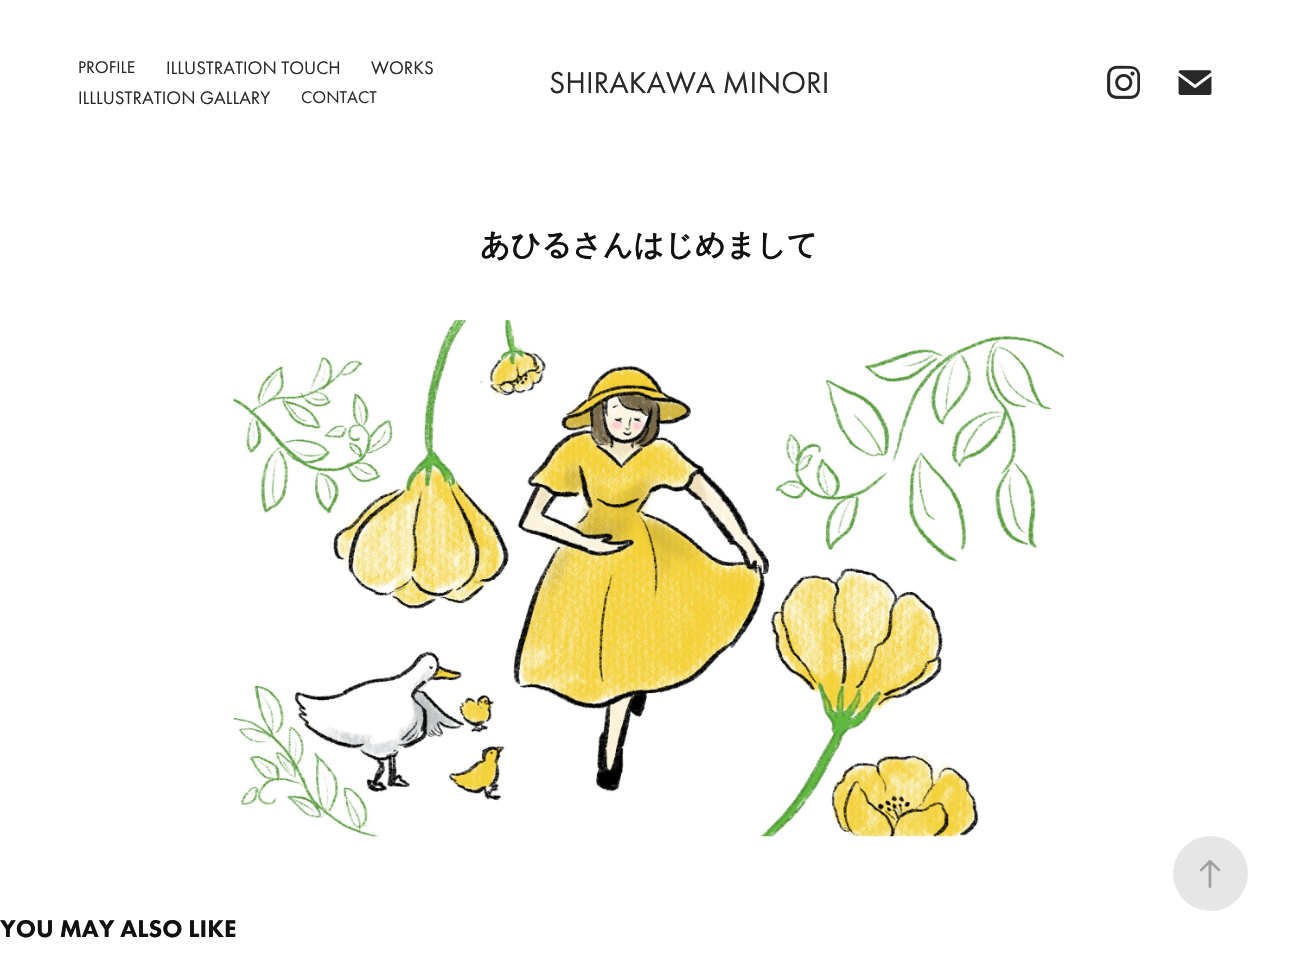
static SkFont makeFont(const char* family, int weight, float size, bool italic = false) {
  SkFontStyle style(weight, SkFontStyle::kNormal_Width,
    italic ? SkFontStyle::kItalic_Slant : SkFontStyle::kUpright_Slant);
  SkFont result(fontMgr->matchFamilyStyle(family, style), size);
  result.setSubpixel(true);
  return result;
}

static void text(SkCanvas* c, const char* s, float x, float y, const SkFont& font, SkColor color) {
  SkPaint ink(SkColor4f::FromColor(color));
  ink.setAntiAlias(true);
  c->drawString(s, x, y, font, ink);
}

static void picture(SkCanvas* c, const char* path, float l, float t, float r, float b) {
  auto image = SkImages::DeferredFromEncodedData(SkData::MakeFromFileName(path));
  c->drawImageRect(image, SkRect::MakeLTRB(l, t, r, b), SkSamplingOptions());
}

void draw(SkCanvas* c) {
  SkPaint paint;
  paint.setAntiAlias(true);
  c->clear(0xffffffff);
  SkFont face1 = makeFont("Futura PT", 400, 17.5f);
  text(c, "PROFILE", 78, 73, face1, 0xff282828);
  SkFont face2 = makeFont("Futura PT", 400, 18.75f);
  text(c, "ILLUSTRATION TOUCH", 166, 74, face2, 0xff282828);
  text(c, "WORKS", 371, 74, face2, 0xff282828);
  text(c, "ILLLUSTRATION GALLARY", 78, 104, face2, 0xff282828);
  text(c, "CONTACT", 301, 103, face1, 0xff282828);
  SkFont face3 = makeFont("Futura PT", 400, 31.25f);
  text(c, "SHIRAKAWA MINORI", 549, 93, face3, 0xff282828);
  picture(c, "img_01.png", 1107, 65, 1140, 99);
  picture(c, "img_02.png", 1178, 70, 1212, 95);
  SkFont face4 = makeFont("WenQuanYi Zen Hei", 700, 30);
  text(c, "あひるさんはじめまして", 480, 255, face4, 0xff111111);
  picture(c, "img_03.png", 233, 320, 1064, 837);
  paint.setColor(0xffe6e6e6);
  c->drawCircle(1210.5f, 873.5f, 37.5f, paint);
  picture(c, "img_04.png", 1199, 860, 1221, 888);
  SkFont face5 = makeFont("Futura PT", 900, 25);
  text(c, "YOU MAY ALSO LIKE", 0, 937, face5, 0xff111111);
}
